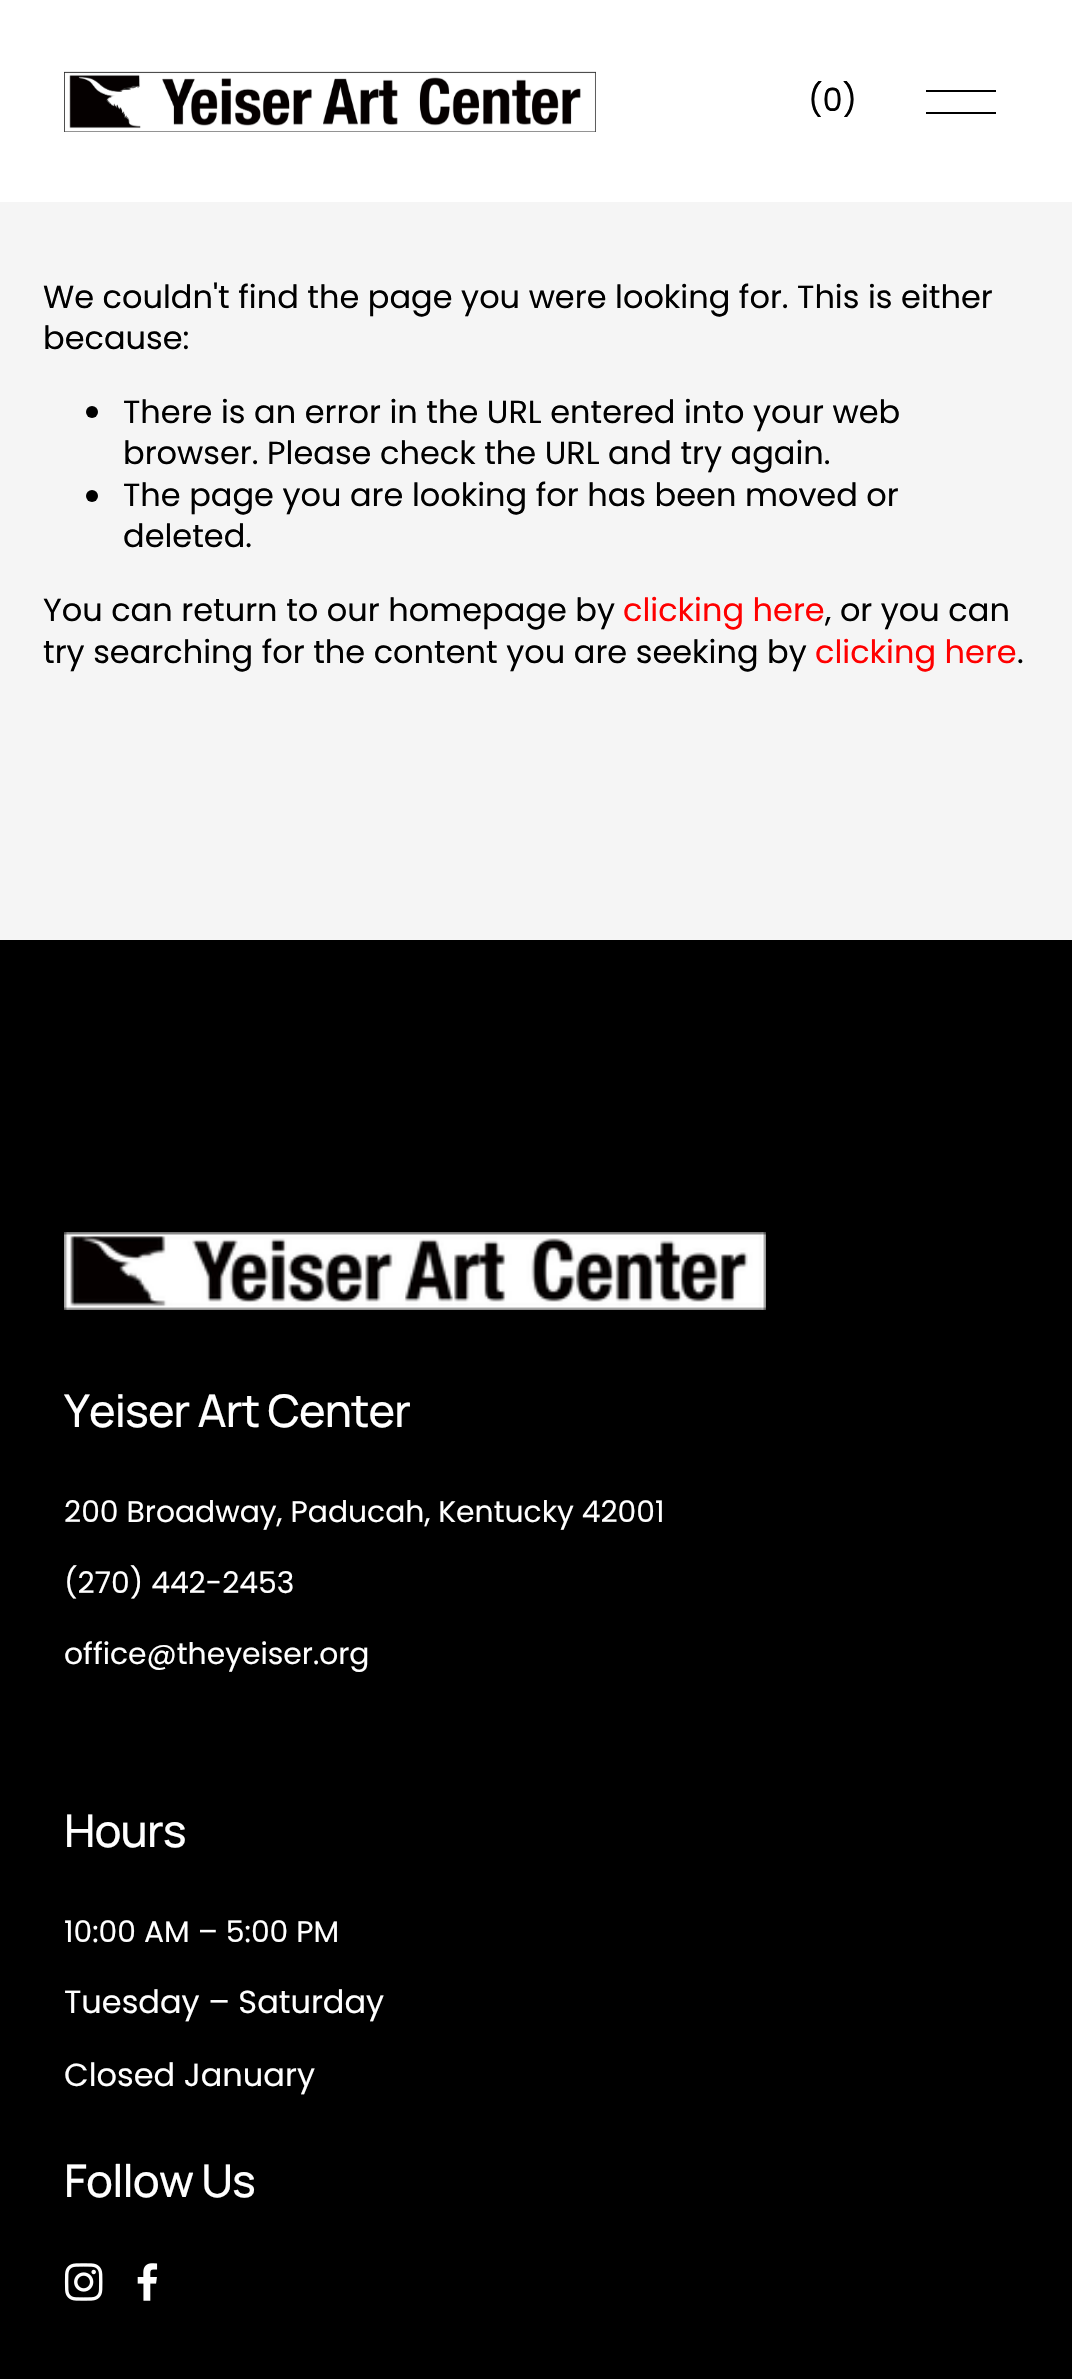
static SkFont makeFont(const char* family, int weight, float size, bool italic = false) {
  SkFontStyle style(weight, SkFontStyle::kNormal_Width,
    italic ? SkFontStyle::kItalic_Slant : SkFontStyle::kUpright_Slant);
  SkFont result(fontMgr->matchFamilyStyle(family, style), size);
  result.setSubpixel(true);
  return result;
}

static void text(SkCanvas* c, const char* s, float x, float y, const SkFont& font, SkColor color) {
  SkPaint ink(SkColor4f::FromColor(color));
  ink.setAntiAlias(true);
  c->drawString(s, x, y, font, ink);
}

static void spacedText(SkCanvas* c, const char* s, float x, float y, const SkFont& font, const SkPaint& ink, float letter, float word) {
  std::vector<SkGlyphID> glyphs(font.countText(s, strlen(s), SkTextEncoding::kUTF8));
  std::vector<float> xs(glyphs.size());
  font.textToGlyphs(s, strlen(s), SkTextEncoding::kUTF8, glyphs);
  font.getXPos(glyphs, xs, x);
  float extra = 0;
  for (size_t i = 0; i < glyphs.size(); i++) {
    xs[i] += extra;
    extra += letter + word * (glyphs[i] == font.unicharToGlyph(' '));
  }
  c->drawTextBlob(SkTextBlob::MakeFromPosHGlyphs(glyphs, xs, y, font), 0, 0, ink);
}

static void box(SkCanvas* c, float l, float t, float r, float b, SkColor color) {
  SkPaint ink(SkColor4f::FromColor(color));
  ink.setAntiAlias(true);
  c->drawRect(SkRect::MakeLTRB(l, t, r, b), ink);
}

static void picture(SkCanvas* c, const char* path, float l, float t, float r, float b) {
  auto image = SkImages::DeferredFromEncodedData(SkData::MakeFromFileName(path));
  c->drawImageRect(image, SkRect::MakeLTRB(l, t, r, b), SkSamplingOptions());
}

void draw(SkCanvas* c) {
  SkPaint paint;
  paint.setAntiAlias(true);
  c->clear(0xfff5f5f5);
  box(c, 0, 0, 1072, 202, 0xffffffff);
  picture(c, "img_01.png", 64, 71, 596, 132);
  SkFont face1 = makeFont("Poppins", 400, 32);
  text(c, "(0)", 808, 111, face1, 0xff000000);
  box(c, 926, 90, 996, 92, 0xff000000);
  box(c, 926, 112, 996, 114, 0xff000000);
  text(c, "We couldn't find the page you were looking for. This is either", 43, 308, face1, 0xff000000);
  text(c, "because:", 43, 349, face1, 0xff000000);
  paint.setColor(0xff000000);
  c->drawCircle(92, 412, 6, paint);
  text(c, "There is an error in the URL entered into your web", 123, 423, face1, 0xff000000);
  text(c, "browser. Please check the URL and try again.", 123, 464, face1, 0xff000000);
  c->drawCircle(92, 496, 6, paint);
  text(c, "The page you are looking for has been moved or", 123, 506, face1, 0xff000000);
  text(c, "deleted.", 123, 547, face1, 0xff000000);
  text(c, "You can return to our homepage by", 43, 621, face1, 0xff000000);
  text(c, "clicking here", 623, 621, face1, 0xffff0000);
  text(c, ", or you can", 825, 621, face1, 0xff000000);
  text(c, "try searching for the content you are seeking by", 43, 663, face1, 0xff000000);
  text(c, "clicking here", 815, 663, face1, 0xffff0000);
  text(c, ".", 1017, 663, face1, 0xff000000);
  box(c, 0, 940, 1072, 2379, 0xff000000);
  picture(c, "img_02.png", 64, 1232, 766, 1310);
  SkFont face2 = makeFont("Manrope", 500, 45);
  paint.setColor(0xffffffff);
  spacedText(c, "Yeiser Art Center", 64, 1427, face2, paint, -0.9f, 0);
  SkFont face3 = makeFont("Poppins", 400, 29.8f);
  text(c, "200 Broadway, Paducah, Kentucky 42001", 64, 1522, face3, 0xffffffff);
  text(c, "(270) 442-2453", 64, 1593, face3, 0xffffffff);
  text(c, "office@theyeiser.org", 64, 1664, face3, 0xffffffff);
  spacedText(c, "Hours", 64, 1847, face2, paint, -0.9f, 0);
  text(c, "10:00 AM – 5:00 PM", 64, 1942, face3, 0xffffffff);
  text(c, "Tuesday – Saturday", 64, 2013, face1, 0xffffffff);
  text(c, "Closed January", 64, 2086, face1, 0xffffffff);
  spacedText(c, "Follow Us", 64, 2197, face2, paint, -0.9f, 0);
  picture(c, "img_03.png", 64, 2263, 103, 2301);
  picture(c, "img_04.png", 137, 2263, 158, 2301);
}
